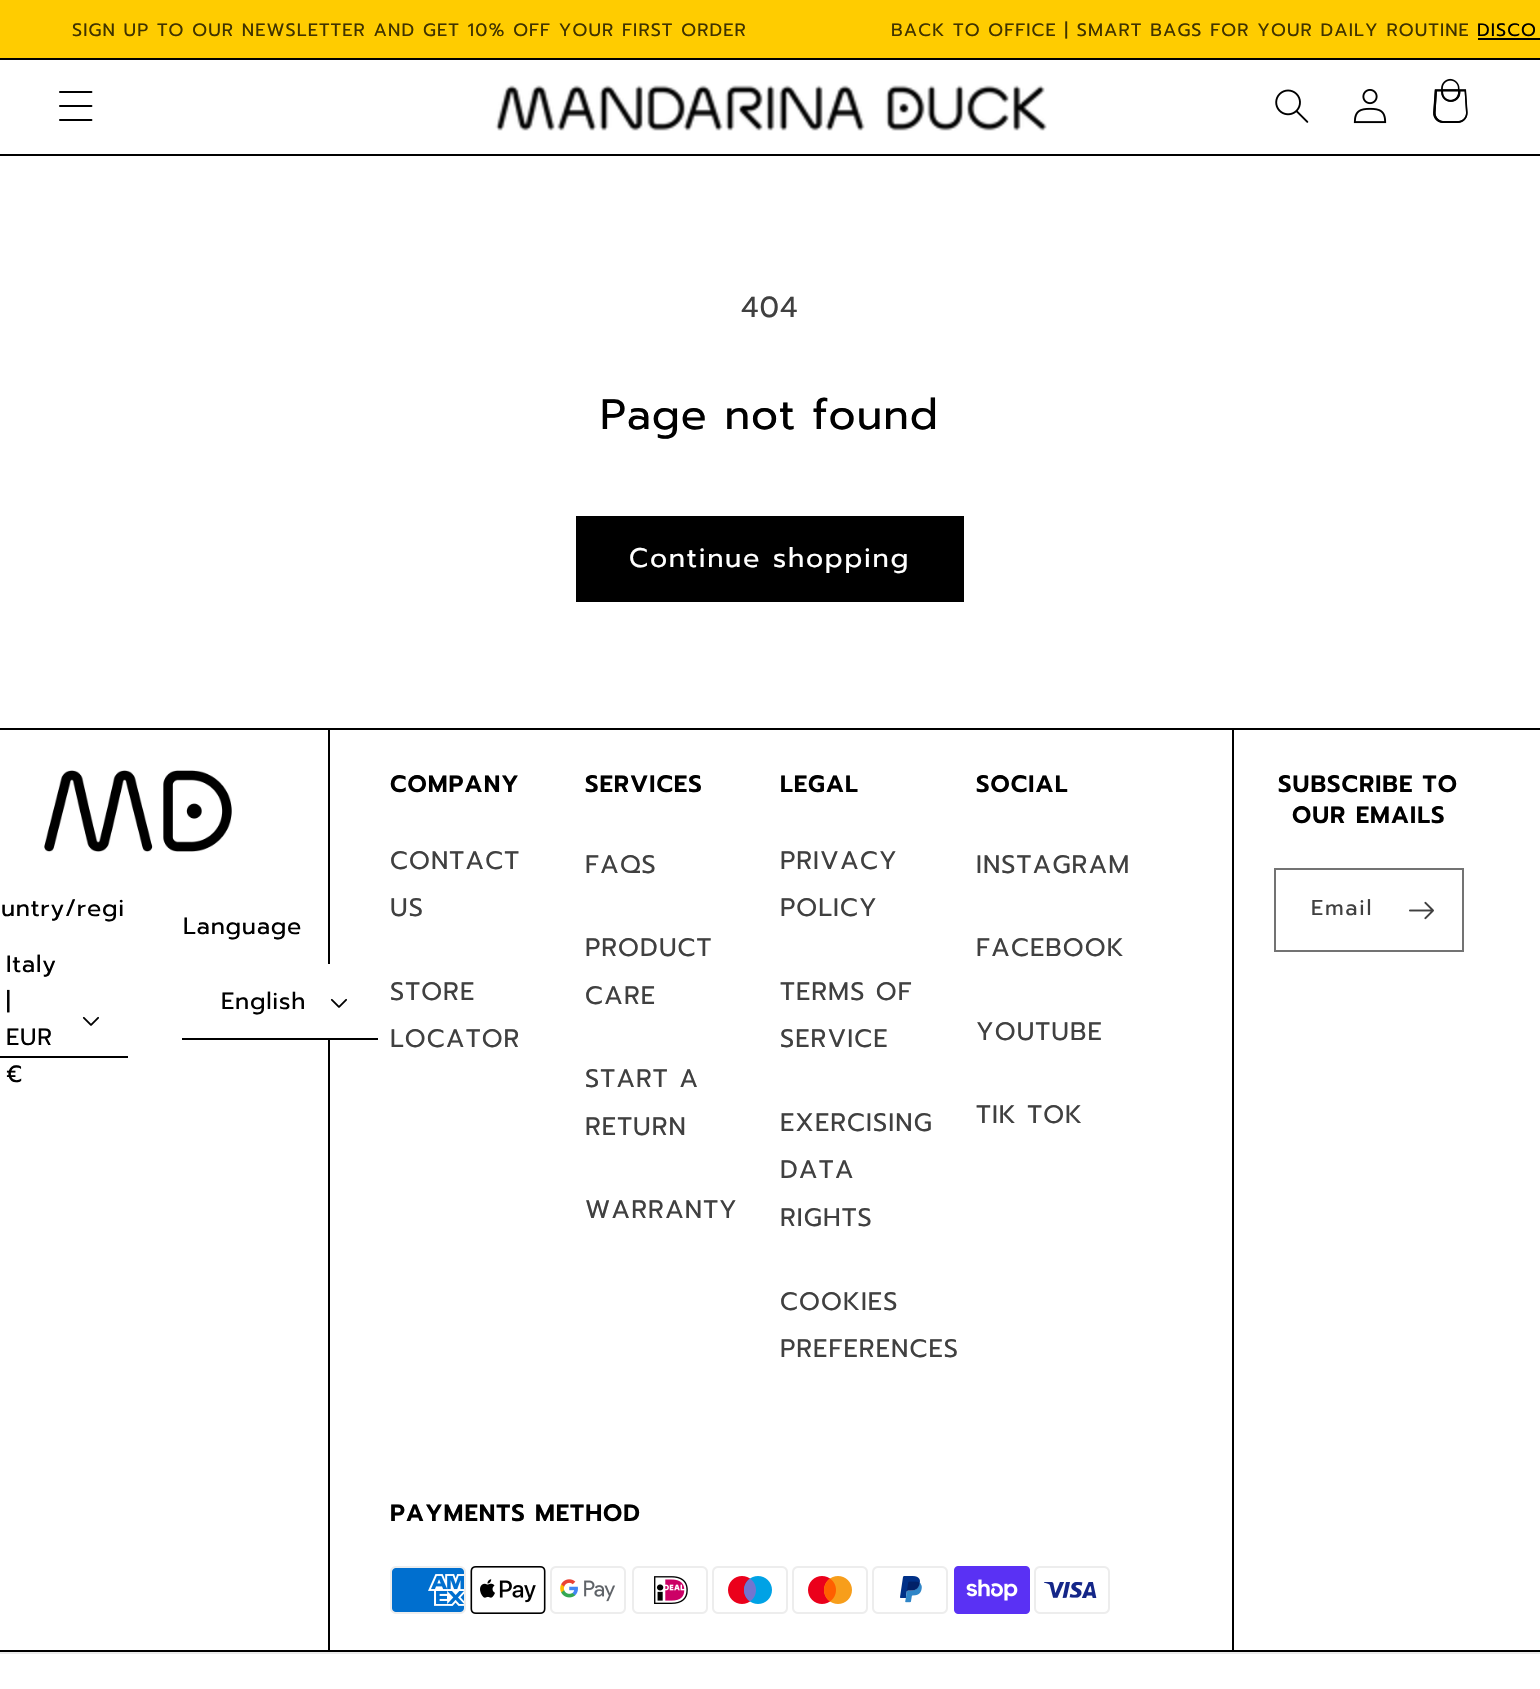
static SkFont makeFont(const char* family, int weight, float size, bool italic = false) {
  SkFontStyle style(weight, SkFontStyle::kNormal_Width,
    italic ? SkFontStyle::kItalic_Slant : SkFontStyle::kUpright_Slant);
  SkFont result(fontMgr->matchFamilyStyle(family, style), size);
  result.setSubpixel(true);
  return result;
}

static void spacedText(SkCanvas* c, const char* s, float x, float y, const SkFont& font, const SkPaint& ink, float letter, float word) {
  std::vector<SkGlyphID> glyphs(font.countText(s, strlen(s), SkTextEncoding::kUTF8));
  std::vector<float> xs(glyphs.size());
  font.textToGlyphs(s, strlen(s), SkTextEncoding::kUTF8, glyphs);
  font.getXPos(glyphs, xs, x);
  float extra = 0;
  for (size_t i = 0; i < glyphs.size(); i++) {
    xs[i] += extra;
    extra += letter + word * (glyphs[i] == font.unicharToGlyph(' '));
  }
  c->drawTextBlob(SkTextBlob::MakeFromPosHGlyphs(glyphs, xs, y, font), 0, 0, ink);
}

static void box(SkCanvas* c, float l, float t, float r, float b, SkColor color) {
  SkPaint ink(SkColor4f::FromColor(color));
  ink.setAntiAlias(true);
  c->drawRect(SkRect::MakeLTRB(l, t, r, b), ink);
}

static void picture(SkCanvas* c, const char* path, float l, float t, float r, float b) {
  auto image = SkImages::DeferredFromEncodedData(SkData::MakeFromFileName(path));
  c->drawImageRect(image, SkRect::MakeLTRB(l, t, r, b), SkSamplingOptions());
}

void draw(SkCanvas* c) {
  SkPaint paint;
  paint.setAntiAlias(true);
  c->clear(0xffffffff);
  box(c, 0, 0, 1540, 58, 0xffffcc00);
  box(c, 0, 58, 1540, 60, 0xff000000);
  SkFont face1 = makeFont("Prompt", 400, 18);
  paint.setColor(0xff403300);
  spacedText(c, "SIGN UP TO OUR NEWSLETTER AND GET 10% OFF YOUR FIRST ORDER", 72, 36, face1, paint, 1.08f, 0);
  spacedText(c, "BACK TO OFFICE | SMART BAGS FOR YOUR DAILY ROUTINE", 891, 36, face1, paint, 1.08f, 0);
  paint.setColor(0xff000000);
  spacedText(c, "DISCO", 1477, 36, face1, paint, 1.08f, 0);
  box(c, 1478, 38, 1540, 40, 0xff000000);
  box(c, 0, 154, 1540, 156, 0xff000000);
  picture(c, "img_01.png", 59, 91, 93, 121);
  picture(c, "img_02.png", 495, 85, 1047, 131);
  picture(c, "img_03.png", 1275, 89, 1309, 123);
  picture(c, "img_04.png", 1353, 89, 1387, 124);
  picture(c, "img_05.png", 1433, 78, 1468, 123);
  SkFont face2 = makeFont("Prompt", 400, 29);
  paint.setColor(0xff404040);
  spacedText(c, "404", 741, 317, face2, paint, 1.08f, 0);
  SkFont face3 = makeFont("Prompt", 400, 42.5f);
  paint.setColor(0xff000000);
  spacedText(c, "Page not found", 600, 429, face3, paint, 1, 0);
  box(c, 576, 516, 964, 602, 0xff000000);
  SkFont face4 = makeFont("Prompt", 400, 27);
  paint.setColor(0xffffffff);
  spacedText(c, "Continue shopping", 629, 567, face4, paint, 1.75f, 0);
  box(c, 0, 728, 1540, 730, 0xff000000);
  box(c, 0, 1650, 1540, 1652, 0xff000000);
  SkFont face5 = makeFont("Prompt", 600, 23.75f);
  paint.setColor(0xff000000);
  spacedText(c, "COMPANY", 390, 792, face5, paint, 1, 0);
  SkFont face6 = makeFont("Prompt", 400, 25.25f);
  paint.setColor(0xff404040);
  spacedText(c, "CONTACT", 390, 869, face6, paint, 1.08f, 0);
  spacedText(c, "US", 390, 916, face6, paint, 1.08f, 0);
  spacedText(c, "STORE", 390, 1000, face6, paint, 1.08f, 0);
  spacedText(c, "LOCATOR", 390, 1047, face6, paint, 1.08f, 0);
  paint.setColor(0xff000000);
  spacedText(c, "SERVICES", 585, 792, face5, paint, 1, 0);
  paint.setColor(0xff404040);
  spacedText(c, "FAQS", 585, 873, face6, paint, 1.08f, 0);
  spacedText(c, "PRODUCT", 585, 956, face6, paint, 1.08f, 0);
  spacedText(c, "CARE", 585, 1004, face6, paint, 1.08f, 0);
  spacedText(c, "START A", 585, 1087, face6, paint, 1.08f, 0);
  spacedText(c, "RETURN", 585, 1135, face6, paint, 1.08f, 0);
  spacedText(c, "WARRANTY", 585, 1218, face6, paint, 1.08f, 0);
  paint.setColor(0xff000000);
  spacedText(c, "LEGAL", 780, 792, face5, paint, 1, 0);
  paint.setColor(0xff404040);
  spacedText(c, "PRIVACY", 780, 869, face6, paint, 1.08f, 0);
  spacedText(c, "POLICY", 780, 916, face6, paint, 1.08f, 0);
  spacedText(c, "TERMS OF", 780, 1000, face6, paint, 1.08f, 0);
  spacedText(c, "SERVICE", 780, 1047, face6, paint, 1.08f, 0);
  spacedText(c, "EXERCISING", 780, 1131, face6, paint, 1.08f, 0);
  spacedText(c, "DATA", 780, 1178, face6, paint, 1.08f, 0);
  spacedText(c, "RIGHTS", 780, 1226, face6, paint, 1.08f, 0);
  spacedText(c, "COOKIES", 780, 1310, face6, paint, 1.08f, 0);
  spacedText(c, "PREFERENCES", 780, 1357, face6, paint, 1.08f, 0);
  paint.setColor(0xff000000);
  spacedText(c, "SOCIAL", 976, 792, face5, paint, 1, 0);
  paint.setColor(0xff404040);
  spacedText(c, "INSTAGRAM", 976, 873, face6, paint, 1.08f, 0);
  spacedText(c, "FACEBOOK", 976, 956, face6, paint, 1.08f, 0);
  spacedText(c, "YOUTUBE", 976, 1040, face6, paint, 1.08f, 0);
  spacedText(c, "TIK TOK", 976, 1123, face6, paint, 1.08f, 0);
  paint.setColor(0xff000000);
  spacedText(c, "PAYMENTS METHOD", 390, 1521, face5, paint, 1, 0);
  picture(c, "img_06.png", 390, 1566, 466, 1614);
  picture(c, "img_07.png", 470, 1566, 546, 1614);
  picture(c, "img_08.png", 550, 1566, 626, 1614);
  picture(c, "img_09.png", 632, 1566, 708, 1614);
  picture(c, "img_10.png", 712, 1566, 788, 1614);
  picture(c, "img_11.png", 792, 1566, 868, 1614);
  picture(c, "img_12.png", 872, 1566, 948, 1614);
  picture(c, "img_13.png", 954, 1566, 1030, 1614);
  picture(c, "img_14.png", 1034, 1566, 1110, 1614);
  box(c, 1232, 730, 1234, 1650, 0xff000000);
  spacedText(c, "SUBSCRIBE TO", 1278, 792, face5, paint, 1, 0);
  spacedText(c, "OUR EMAILS", 1292, 823, face5, paint, 1, 0);
  paint.setStyle(SkPaint::kStroke_Style);
  paint.setStrokeWidth(2);
  paint.setColor(0xff737373);
  c->drawRect(SkRect::MakeLTRB(1275, 869, 1463, 951), paint);
  SkFont face7 = makeFont("Prompt", 400, 21.5f);
  paint.setStyle(SkPaint::kFill_Style);
  paint.setColor(0xff404040);
  spacedText(c, "Email", 1311, 915, face7, paint, 1.75f, 0);
  picture(c, "img_15.png", 1409, 901, 1434, 920);
  box(c, 328, 730, 330, 1650, 0xff000000);
  picture(c, "img_16.png", 44, 770, 232, 852);
  SkFont face8 = makeFont("Prompt", 400, 23.5f);
  paint.setColor(0xff000000);
  spacedText(c, "untry/regi", 1, 916, face8, paint, 0.75f, 0);
  box(c, 0, 1056, 128, 1058, 0xff000000);
  spacedText(c, "Italy", 6, 972, face8, paint, 0.75f, 0);
  spacedText(c, "|", 6, 1009, face8, paint, 0.75f, 0);
  spacedText(c, "EUR", 6, 1045, face8, paint, 0.75f, 0);
  spacedText(c, "€", 6, 1082, face8, paint, 0.75f, 0);
  picture(c, "img_17.png", 82, 1016, 99, 1026);
  spacedText(c, "Language", 183, 934, face8, paint, 0.75f, 0);
  box(c, 328, 964, 330, 1038, 0xffffffff);
  box(c, 182, 1038, 378, 1040, 0xff000000);
  spacedText(c, "English", 221, 1009, face8, paint, 0.75f, 0);
  picture(c, "img_17.png", 330, 998, 347, 1008);
  box(c, 0, 1652, 1540, 1654, 0xffebebeb);
}
